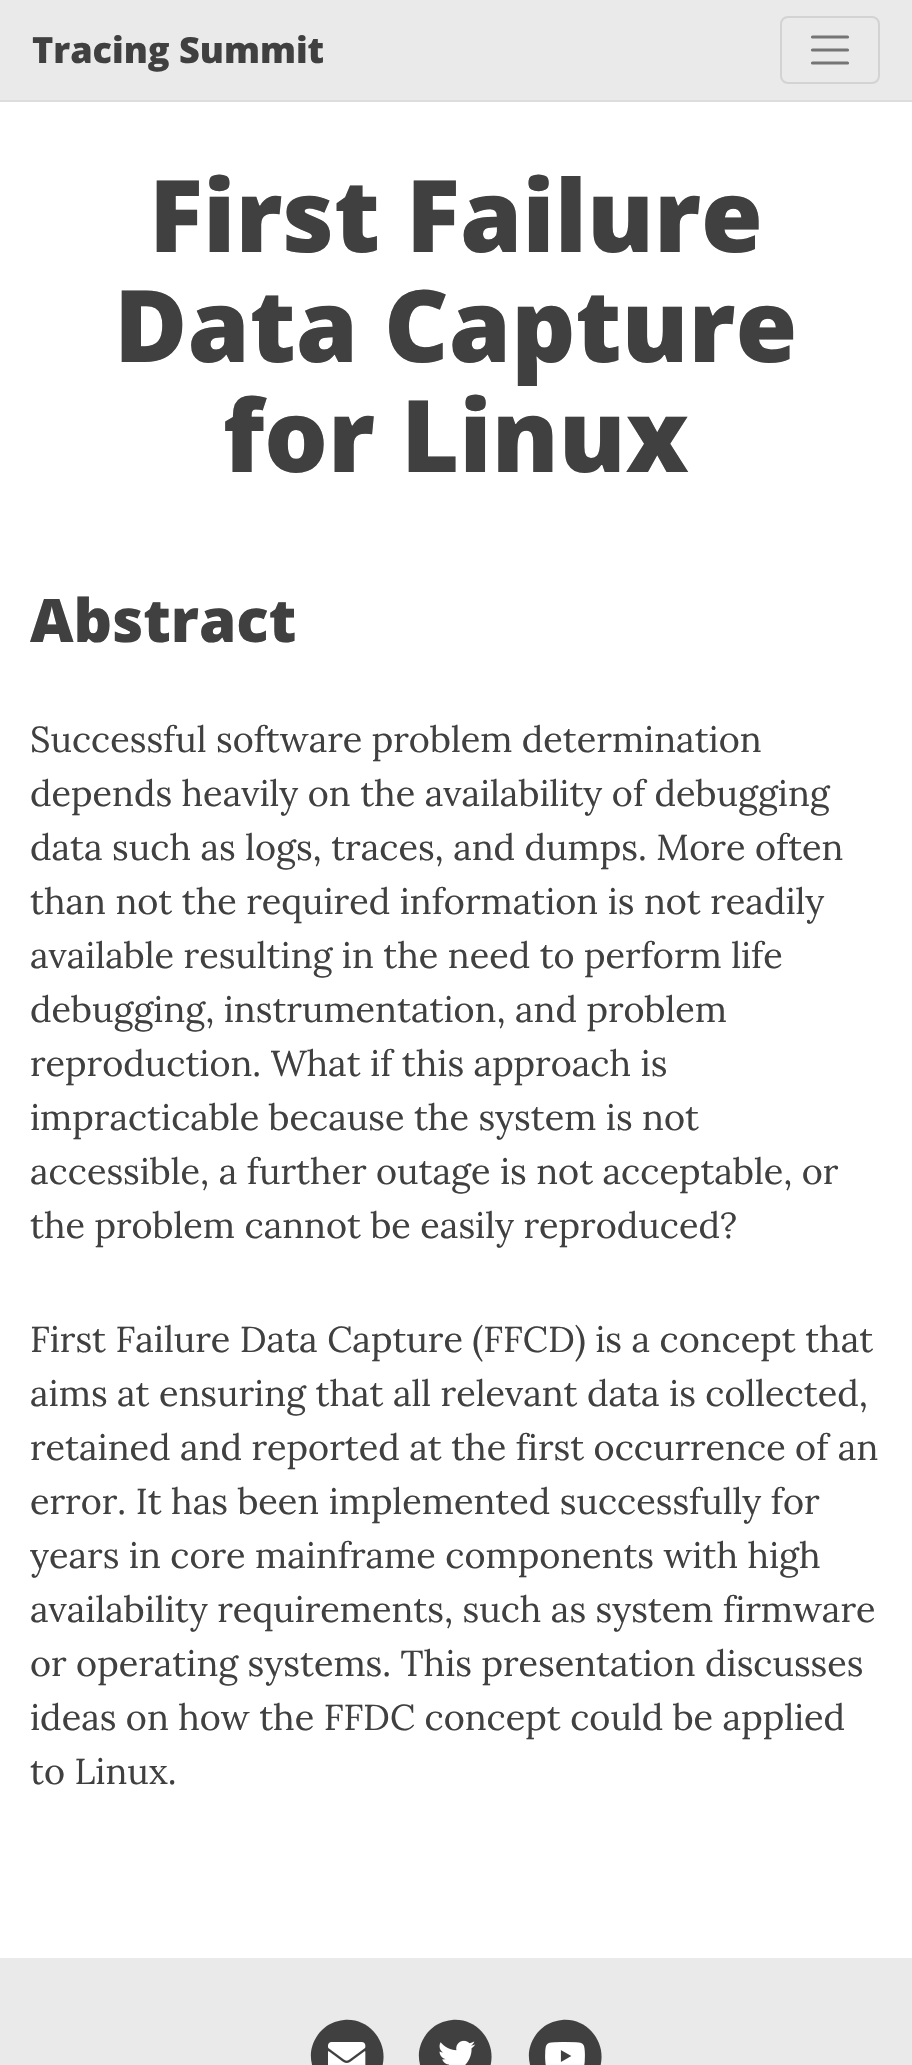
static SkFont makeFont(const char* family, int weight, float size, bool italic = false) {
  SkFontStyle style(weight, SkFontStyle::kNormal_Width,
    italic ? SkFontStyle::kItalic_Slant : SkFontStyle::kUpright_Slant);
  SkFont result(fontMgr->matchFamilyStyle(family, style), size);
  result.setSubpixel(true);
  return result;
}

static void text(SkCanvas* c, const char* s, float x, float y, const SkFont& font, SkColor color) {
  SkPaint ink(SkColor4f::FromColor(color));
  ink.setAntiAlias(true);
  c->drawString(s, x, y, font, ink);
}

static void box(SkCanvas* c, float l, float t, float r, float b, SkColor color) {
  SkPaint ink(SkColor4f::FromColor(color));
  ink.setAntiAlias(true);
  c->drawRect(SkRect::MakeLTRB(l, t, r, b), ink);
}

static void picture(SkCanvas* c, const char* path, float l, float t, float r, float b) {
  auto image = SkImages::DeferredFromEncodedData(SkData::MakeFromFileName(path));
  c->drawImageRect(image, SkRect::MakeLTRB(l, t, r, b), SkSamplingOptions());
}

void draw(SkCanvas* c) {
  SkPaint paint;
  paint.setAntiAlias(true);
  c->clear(0xffffffff);
  box(c, 0, 0, 912, 100, 0xffeaeaea);
  box(c, 0, 100, 912, 102, 0xffdddddd);
  SkFont face1 = makeFont("Open Sans", 800, 36);
  text(c, "Tracing Summit", 32, 63, face1, 0xff404040);
  paint.setStyle(SkPaint::kStroke_Style);
  paint.setStrokeWidth(2);
  paint.setColor(0xffd3d3d3);
  c->drawRoundRect(SkRect::MakeLTRB(781, 17, 879, 83), 7, 7, paint);
  paint.setStrokeWidth(3.2f);
  paint.setStrokeCap(SkPaint::kRound_Cap);
  paint.setColor(0xff757575);
  c->drawPath(SkPathBuilder().moveTo(812.5f, 37).lineTo(847.5f, 37).moveTo(812.5f, 50).lineTo(847.5f, 50).moveTo(812.5f, 63).lineTo(847.5f, 63).detach(), paint);
  SkFont face2 = makeFont("Open Sans", 800, 100);
  text(c, "First Failure", 149, 252, face2, 0xff404040);
  text(c, "Data Capture", 114, 362, face2, 0xff404040);
  text(c, "for Linux", 223, 472, face2, 0xff404040);
  SkFont face3 = makeFont("Open Sans", 800, 60);
  text(c, "Abstract", 30, 642, face3, 0xff404040);
  SkFont face4 = makeFont("Lora", 400, 36);
  text(c, "Successful software problem determination", 30, 752, face4, 0xff404040);
  text(c, "depends heavily on the availability of debugging", 30, 806, face4, 0xff404040);
  text(c, "data such as logs, traces, and dumps. More often", 30, 860, face4, 0xff404040);
  text(c, "than not the required information is not readily", 30, 914, face4, 0xff404040);
  text(c, "available resulting in the need to perform life", 30, 968, face4, 0xff404040);
  text(c, "debugging, instrumentation, and problem", 30, 1022, face4, 0xff404040);
  text(c, "reproduction. What if this approach is", 30, 1076, face4, 0xff404040);
  text(c, "impracticable because the system is not", 30, 1130, face4, 0xff404040);
  text(c, "accessible, a further outage is not acceptable, or", 30, 1184, face4, 0xff404040);
  text(c, "the problem cannot be easily reproduced?", 30, 1238, face4, 0xff404040);
  text(c, "First Failure Data Capture (FFCD) is a concept that", 30, 1352, face4, 0xff404040);
  text(c, "aims at ensuring that all relevant data is collected,", 30, 1406, face4, 0xff404040);
  text(c, "retained and reported at the first occurrence of an", 30, 1460, face4, 0xff404040);
  text(c, "error. It has been implemented successfully for", 30, 1514, face4, 0xff404040);
  text(c, "years in core mainframe components with high", 30, 1568, face4, 0xff404040);
  text(c, "availability requirements, such as system firmware", 30, 1622, face4, 0xff404040);
  text(c, "or operating systems. This presentation discusses", 30, 1676, face4, 0xff404040);
  text(c, "ideas on how the FFDC concept could be applied", 30, 1730, face4, 0xff404040);
  text(c, "to Linux.", 30, 1784, face4, 0xff404040);
  box(c, 0, 1958, 912, 2065, 0xffeaeaea);
  paint.setStyle(SkPaint::kFill_Style);
  paint.setColor(0xff404040);
  c->drawPath(SkPathBuilder().moveTo(322, 2030).cubicTo(328, 2024, 335, 2021, 344, 2020).cubicTo(377, 2017, 397, 2058, 373, 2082).cubicTo(349, 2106, 308, 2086, 311, 2052).cubicTo(312, 2044, 316, 2036, 322, 2030).close().detach(), paint);
  picture(c, "img_01.png", 328, 2042, 366, 2065);
  c->drawPath(SkPathBuilder().moveTo(430, 2030).cubicTo(436, 2024, 443, 2021, 452, 2020).cubicTo(485, 2017, 505, 2058, 481, 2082).cubicTo(457, 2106, 416, 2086, 419, 2052).cubicTo(420, 2044, 424, 2036, 430, 2030).close().detach(), paint);
  picture(c, "img_02.png", 439, 2040, 476, 2065);
  c->drawPath(SkPathBuilder().moveTo(540, 2030).cubicTo(546, 2024, 553, 2021, 562, 2020).cubicTo(595, 2017, 615, 2058, 591, 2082).cubicTo(567, 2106, 526, 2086, 529, 2052).cubicTo(530, 2044, 534, 2036, 540, 2030).close().detach(), paint);
  picture(c, "img_03.png", 545, 2042, 585, 2065);
}
